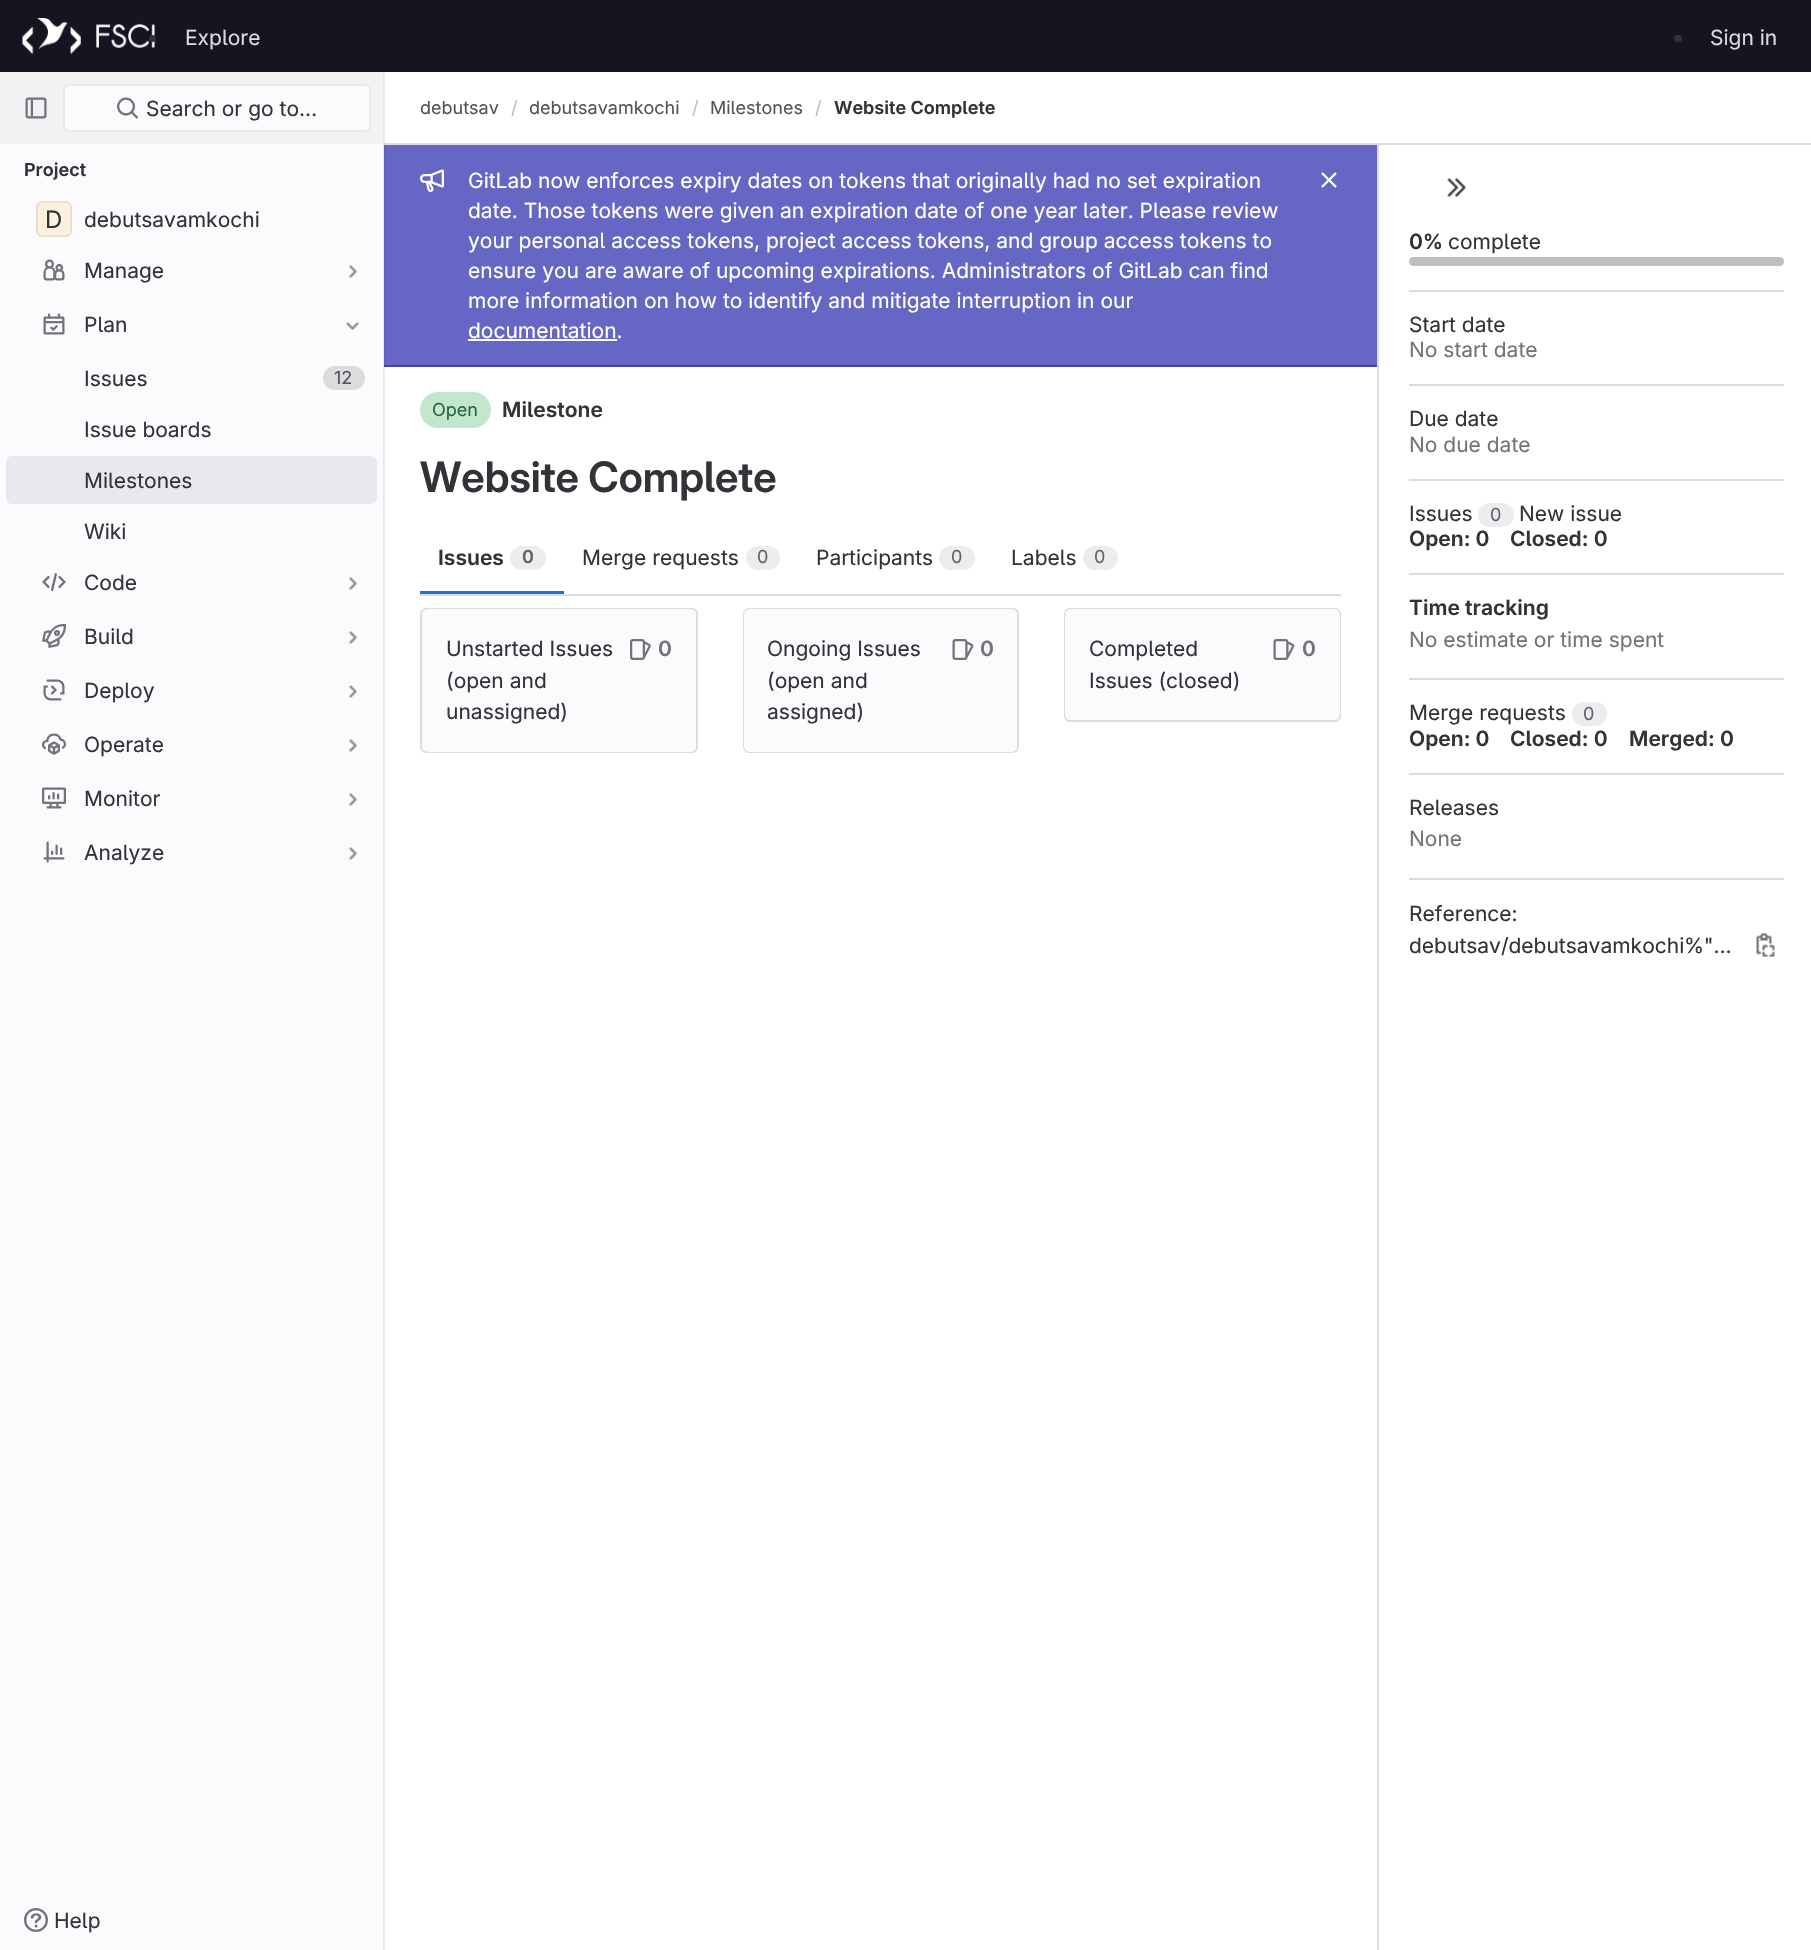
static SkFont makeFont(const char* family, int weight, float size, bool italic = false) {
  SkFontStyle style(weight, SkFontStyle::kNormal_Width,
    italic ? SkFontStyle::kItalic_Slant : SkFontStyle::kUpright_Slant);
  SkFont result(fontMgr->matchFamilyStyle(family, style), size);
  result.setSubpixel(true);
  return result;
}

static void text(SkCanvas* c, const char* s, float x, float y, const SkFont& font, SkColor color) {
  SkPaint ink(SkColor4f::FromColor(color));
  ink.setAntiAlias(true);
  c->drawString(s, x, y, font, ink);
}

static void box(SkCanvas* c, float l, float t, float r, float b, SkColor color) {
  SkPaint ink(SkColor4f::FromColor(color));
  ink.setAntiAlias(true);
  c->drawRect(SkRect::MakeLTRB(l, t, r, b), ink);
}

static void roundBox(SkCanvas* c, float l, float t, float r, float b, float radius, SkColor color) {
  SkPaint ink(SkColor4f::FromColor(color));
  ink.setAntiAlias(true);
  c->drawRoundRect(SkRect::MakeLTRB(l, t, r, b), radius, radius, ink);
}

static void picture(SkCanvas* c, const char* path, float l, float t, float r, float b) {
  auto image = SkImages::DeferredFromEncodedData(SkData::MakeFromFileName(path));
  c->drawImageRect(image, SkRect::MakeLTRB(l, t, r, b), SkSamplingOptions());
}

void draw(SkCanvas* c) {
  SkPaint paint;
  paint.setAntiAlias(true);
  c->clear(0xffffffff);
  box(c, 384, 72, 385, 1950, 0xffededed);
  box(c, 0, 0, 1811, 72, 0xff171321);
  picture(c, "img_01.png", 22, 18, 155, 54);
  paint.setColor(0xff333238);
  c->drawCircle(152.5f, 38.5f, 3.5f, paint);
  SkFont face1 = makeFont("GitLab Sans", 400, 21);
  text(c, "Explore", 185, 45, face1, 0xffdcdcde);
  roundBox(c, 1674, 35, 1682, 42, 3.5f, 0xff333238);
  text(c, "Sign in", 1710, 45, face1, 0xffdcdcde);
  box(c, 0, 144, 383, 1950, 0xfffbfafd);
  box(c, 383, 72, 384, 1950, 0xffe9e8ec);
  box(c, 0, 72, 383, 144, 0xfff2f1f4);
  picture(c, "img_02.png", 25, 97, 47, 119);
  paint.setColor(0xfffbfafd);
  c->drawRoundRect(SkRect::MakeLTRB(64, 85, 370, 131), 5, 5, paint);
  paint.setStyle(SkPaint::kStroke_Style);
  paint.setStrokeWidth(2);
  paint.setColor(0xffe9e8ec);
  c->drawRoundRect(SkRect::MakeLTRB(64, 85, 370, 131), 5, 5, paint);
  picture(c, "img_03.png", 117, 97, 138, 119);
  text(c, "Search or go to…", 146, 116, face1, 0xff333238);
  SkFont face2 = makeFont("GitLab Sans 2", 600, 18);
  text(c, "Project", 24, 176, face2, 0xff333238);
  roundBox(c, 36, 201, 72, 237, 6, 0xfffdf1dd);
  paint.setColor(0x141f1e24);
  c->drawRoundRect(SkRect::MakeLTRB(37, 202, 71, 236), 5, 5, paint);
  SkFont face3 = makeFont("GitLab Sans 2", 400, 24);
  text(c, "D", 45, 228, face3, 0xff333238);
  text(c, "debutsavamkochi", 84, 227, face1, 0xff333238);
  picture(c, "img_04.png", 43, 259, 65, 281);
  text(c, "Manage", 84, 278, face1, 0xff333238);
  picture(c, "img_05.png", 349, 265, 357, 278);
  picture(c, "img_06.png", 43, 313, 65, 335);
  text(c, "Plan", 84, 332, face1, 0xff333238);
  picture(c, "img_07.png", 346, 322, 359, 330);
  text(c, "Issues", 84, 386, face1, 0xff333238);
  roundBox(c, 323, 366, 365, 390, 12, 0xffdcdcde);
  SkFont face4 = makeFont("GitLab Sans", 400, 18);
  text(c, "12", 334, 384, face4, 0xff535158);
  text(c, "Issue boards", 84, 437, face1, 0xff333238);
  roundBox(c, 6, 456, 377, 504, 6, 0xffe9e8ec);
  text(c, "Milestones", 84, 488, face1, 0xff333238);
  text(c, "Wiki", 84, 539, face1, 0xff333238);
  picture(c, "img_08.png", 42, 573, 66, 591);
  text(c, "Code", 84, 590, face1, 0xff333238);
  picture(c, "img_05.png", 349, 577, 357, 590);
  picture(c, "img_09.png", 42, 624, 66, 648);
  text(c, "Build", 84, 644, face1, 0xff333238);
  picture(c, "img_05.png", 349, 631, 357, 644);
  picture(c, "img_10.png", 43, 679, 65, 701);
  text(c, "Deploy", 84, 698, face1, 0xff333238);
  picture(c, "img_05.png", 349, 685, 357, 698);
  picture(c, "img_11.png", 42, 733, 66, 755);
  text(c, "Operate", 84, 752, face1, 0xff333238);
  picture(c, "img_05.png", 349, 739, 357, 752);
  picture(c, "img_12.png", 42, 787, 66, 809);
  text(c, "Monitor", 84, 806, face1, 0xff333238);
  picture(c, "img_05.png", 349, 793, 357, 806);
  picture(c, "img_13.png", 43, 841, 65, 863);
  text(c, "Analyze", 84, 860, face1, 0xff333238);
  picture(c, "img_05.png", 349, 847, 357, 860);
  picture(c, "img_14.png", 24, 1908, 48, 1932);
  text(c, "Help", 54, 1928, face1, 0xff333238);
  box(c, 384, 144, 385, 366, 0xff6060b7);
  box(c, 1377, 144, 1379, 1950, 0xffdcdcde);
  box(c, 384, 143, 1811, 145, 0xffdcdcde);
  box(c, 384, 143, 385, 145, 0xffcdcdcf);
  text(c, "debutsav", 420, 114, face4, 0xff535158);
  text(c, "/", 511, 114, face4, 0xffbfbfc3);
  text(c, "debutsavamkochi", 529, 114, face4, 0xff535158);
  text(c, "/", 692, 114, face4, 0xffbfbfc3);
  text(c, "Milestones", 710, 114, face4, 0xff535158);
  text(c, "/", 815, 114, face4, 0xffbfbfc3);
  text(c, "Website Complete", 834, 114, face2, 0xff333238);
  box(c, 385, 145, 1377, 365, 0xff6666c4);
  box(c, 384, 365, 1377, 367, 0xff41419f);
  box(c, 384, 365, 385, 367, 0xff3e3e95);
  picture(c, "img_15.png", 420, 169, 444, 192);
  text(c, "GitLab now enforces expiry dates on tokens that originally had no set expiration", 468, 188, face1, 0xffffffff);
  text(c, "date. Those tokens were given an expiration date of one year later. Please review", 468, 218, face1, 0xffffffff);
  text(c, "your personal access tokens, project access tokens, and group access tokens to", 468, 248, face1, 0xffffffff);
  text(c, "ensure you are aware of upcoming expirations. Administrators of GitLab can find", 468, 278, face1, 0xffffffff);
  text(c, "more information on how to identify and mitigate interruption in our", 468, 308, face1, 0xffffffff);
  text(c, "documentation.", 468, 338, face1, 0xffffffff);
  box(c, 468, 339, 617, 341, 0xffffffff);
  picture(c, "img_16.png", 1321, 172, 1337, 188);
  roundBox(c, 420, 392, 491, 428, 18, 0xffc3e6cd);
  text(c, "Open", 432, 416, face4, 0xff24663b);
  SkFont face5 = makeFont("GitLab Sans 2", 600, 21);
  text(c, "Milestone", 502, 417, face5, 0xff333238);
  box(c, 1409, 290, 1784, 292, 0xffdcdcde);
  picture(c, "img_17.png", 1447, 178, 1466, 197);
  text(c, "0%", 1409, 249, face5, 0xff333238);
  text(c, "complete", 1448, 249, face1, 0xff333238);
  roundBox(c, 1409, 257, 1784, 266, 4.5f, 0xffbfbfc3);
  box(c, 1409, 384, 1784, 386, 0xffdcdcde);
  text(c, "Start date", 1409, 332, face1, 0xff333238);
  text(c, "No start date", 1409, 357, face1, 0xff737278);
  box(c, 1409, 479, 1784, 481, 0xffdcdcde);
  text(c, "Due date", 1409, 426, face1, 0xff333238);
  text(c, "No due date", 1409, 452, face1, 0xff737278);
  box(c, 1409, 573, 1784, 575, 0xffdcdcde);
  text(c, "Issues", 1409, 521, face1, 0xff333238);
  roundBox(c, 1478, 503, 1514, 527, 12, 0xffececef);
  text(c, "0", 1490, 521, face4, 0xff626168);
  text(c, "New issue", 1519, 521, face1, 0xff333238);
  text(c, "Open: 0", 1409, 546, face5, 0xff333238);
  text(c, "Closed: 0", 1510, 546, face5, 0xff333238);
  box(c, 1409, 678, 1784, 680, 0xffdcdcde);
  text(c, "Time tracking", 1409, 615, face5, 0xff333238);
  text(c, "No estimate or time spent", 1409, 647, face1, 0xff737278);
  box(c, 1409, 773, 1784, 775, 0xffdcdcde);
  text(c, "Merge requests", 1409, 720, face1, 0xff333238);
  roundBox(c, 1572, 702, 1607, 726, 12, 0xffececef);
  text(c, "0", 1583, 720, face4, 0xff626168);
  text(c, "Open: 0", 1409, 746, face5, 0xff333238);
  text(c, "Closed: 0", 1510, 746, face5, 0xff333238);
  text(c, "Merged: 0", 1629, 746, face5, 0xff333238);
  box(c, 1409, 878, 1784, 880, 0xffdcdcde);
  text(c, "Releases", 1409, 815, face1, 0xff333238);
  text(c, "None", 1409, 846, face1, 0xff737278);
  text(c, "Reference:", 1409, 921, face1, 0xff333238);
  text(c, "debutsav/debutsavamkochi%\"…", 1409, 953, face1, 0xff333238);
  picture(c, "img_18.png", 1756, 932, 1775, 957);
  SkFont face6 = makeFont("GitLab Sans", 600, 42);
  text(c, "Website Complete", 420, 492, face6, 0xff333238);
  box(c, 420, 594, 1341, 596, 0xffdcdcde);
  box(c, 420, 591, 564, 594, 0xff1f75cb);
  text(c, "Issues", 438, 565, face5, 0xff333238);
  roundBox(c, 510, 546, 546, 570, 12, 0xffececef);
  text(c, "0", 522, 563, face2, 0xff626168);
  text(c, "Merge requests", 582, 565, face1, 0xff333238);
  roundBox(c, 746, 546, 780, 570, 12, 0xffececef);
  text(c, "0", 757, 563, face4, 0xff626168);
  text(c, "Participants", 816, 565, face1, 0xff333238);
  roundBox(c, 939, 546, 975, 570, 12, 0xffececef);
  text(c, "0", 951, 563, face4, 0xff626168);
  text(c, "Labels", 1011, 565, face1, 0xff333238);
  roundBox(c, 1083, 546, 1118, 570, 12, 0xffececef);
  text(c, "0", 1094, 563, face4, 0xff626168);
  paint.setColor(0xffdcdcde);
  c->drawRoundRect(SkRect::MakeLTRB(421, 609, 697, 752), 5, 5, paint);
  roundBox(c, 422, 609, 696, 752, 6, 0xfffbfafd);
  text(c, "Unstarted Issues", 446, 656, face1, 0xff333238);
  text(c, "(open and", 446, 688, face1, 0xff333238);
  text(c, "unassigned)", 446, 719, face1, 0xff333238);
  picture(c, "img_19.png", 630, 639, 651, 660);
  text(c, "0", 658, 656, face5, 0xff737278);
  c->drawRoundRect(SkRect::MakeLTRB(744, 609, 1018, 752), 5, 5, paint);
  roundBox(c, 744, 609, 1017, 752, 6, 0xfffbfafd);
  text(c, "Ongoing Issues", 767, 656, face1, 0xff333238);
  text(c, "(open and", 767, 688, face1, 0xff333238);
  text(c, "assigned)", 767, 719, face1, 0xff333238);
  picture(c, "img_20.png", 952, 639, 974, 660);
  text(c, "0", 980, 656, face5, 0xff737278);
  c->drawRoundRect(SkRect::MakeLTRB(1065, 609, 1340, 721), 5, 5, paint);
  roundBox(c, 1065, 609, 1340, 720, 6, 0xfffbfafd);
  text(c, "Completed", 1089, 656, face1, 0xff333238);
  text(c, "Issues (closed)", 1089, 688, face1, 0xff333238);
  picture(c, "img_20.png", 1273, 639, 1295, 660);
  text(c, "0", 1302, 656, face5, 0xff737278);
}
